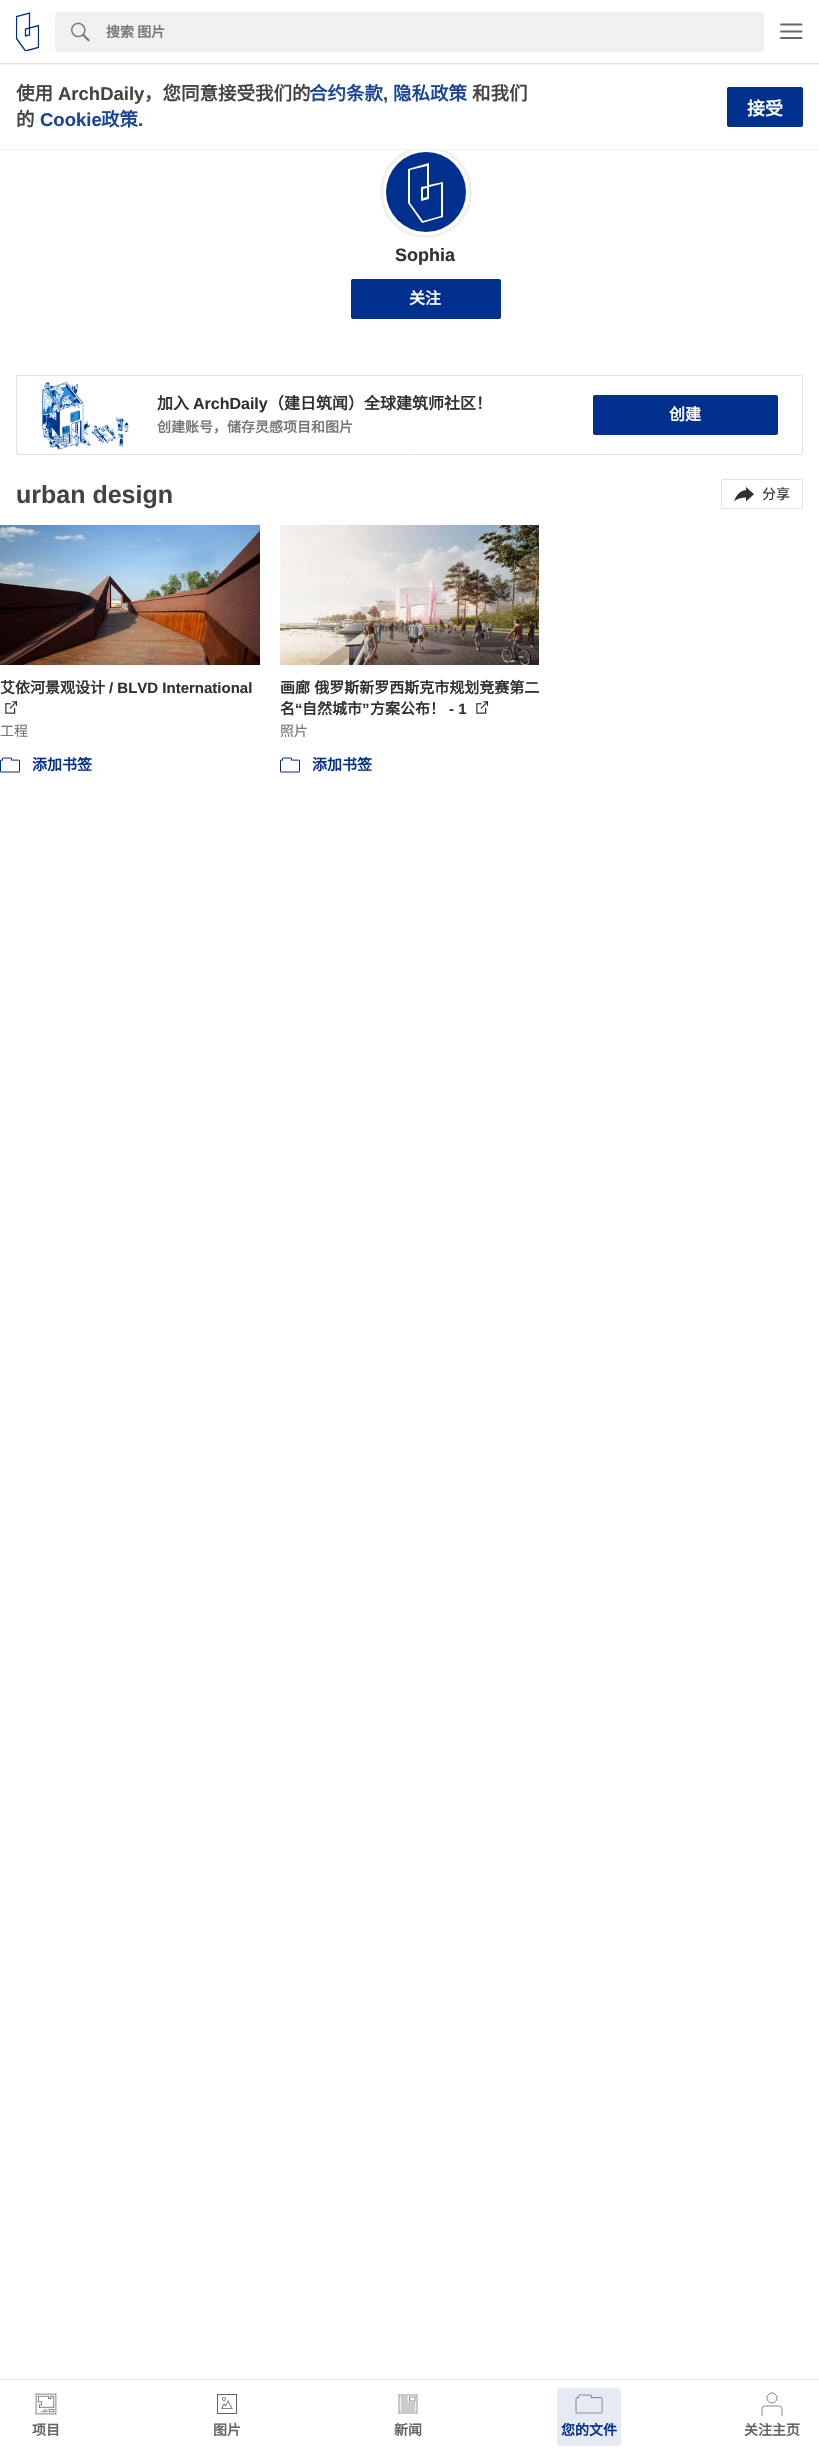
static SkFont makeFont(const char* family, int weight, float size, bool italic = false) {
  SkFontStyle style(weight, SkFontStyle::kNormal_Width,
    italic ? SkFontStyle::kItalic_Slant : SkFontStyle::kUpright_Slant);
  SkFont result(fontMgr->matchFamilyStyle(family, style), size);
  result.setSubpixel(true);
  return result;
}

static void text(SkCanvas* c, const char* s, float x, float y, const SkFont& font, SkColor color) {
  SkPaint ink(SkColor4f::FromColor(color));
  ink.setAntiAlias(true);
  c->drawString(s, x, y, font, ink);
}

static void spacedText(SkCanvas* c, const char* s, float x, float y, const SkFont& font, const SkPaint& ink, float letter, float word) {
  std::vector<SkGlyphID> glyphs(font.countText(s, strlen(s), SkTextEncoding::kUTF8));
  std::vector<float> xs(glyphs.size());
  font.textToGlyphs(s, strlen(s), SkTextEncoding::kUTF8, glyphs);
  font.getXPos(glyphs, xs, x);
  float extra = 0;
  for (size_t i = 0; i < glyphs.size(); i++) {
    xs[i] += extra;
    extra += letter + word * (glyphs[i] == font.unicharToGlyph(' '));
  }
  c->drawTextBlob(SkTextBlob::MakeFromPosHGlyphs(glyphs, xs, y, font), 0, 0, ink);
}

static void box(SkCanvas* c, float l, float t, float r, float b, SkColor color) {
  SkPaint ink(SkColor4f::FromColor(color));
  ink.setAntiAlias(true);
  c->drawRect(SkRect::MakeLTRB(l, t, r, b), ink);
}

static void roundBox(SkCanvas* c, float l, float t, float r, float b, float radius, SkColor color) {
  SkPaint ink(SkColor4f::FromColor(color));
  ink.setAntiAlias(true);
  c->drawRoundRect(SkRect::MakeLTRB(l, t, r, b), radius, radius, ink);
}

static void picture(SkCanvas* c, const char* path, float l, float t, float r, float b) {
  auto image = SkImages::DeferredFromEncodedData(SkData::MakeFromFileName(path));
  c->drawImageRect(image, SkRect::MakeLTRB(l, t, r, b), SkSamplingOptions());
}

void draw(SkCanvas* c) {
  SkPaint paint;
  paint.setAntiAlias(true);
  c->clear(0xffffffff);
  box(c, 0, 63, 819, 64, 0xffe1e1e1);
  c->save();
  c->clipRect(SkRect::MakeLTRB(16, 12, 39, 51));
  paint.setStyle(SkPaint::kStroke_Style);
  paint.setStrokeWidth(1.3f);
  paint.setColor(0xff00308f);
  c->drawPath(SkPathBuilder().moveTo(16.5f, 38.5f).lineTo(16.5f, 16.5f).lineTo(29.5f, 13).lineTo(29.5f, 35).lineTo(25.5f, 36).lineTo(25.5f, 29).lineTo(38.5f, 25.5f).lineTo(38.5f, 47.5f).lineTo(25.5f, 51).close().detach(), paint);
  c->restore();
  roundBox(c, 55, 12, 764, 52, 4, 0xfff0f0f0);
  picture(c, "img_01.png", 71, 22, 90, 42);
  paint.setStyle(SkPaint::kFill_Style);
  paint.setColor(0xfff0f0f0);
  c->drawPath(SkPathBuilder().moveTo(106, 12).lineTo(760, 12).cubicTo(762, 12, 764, 14, 764, 16).lineTo(764, 48).cubicTo(764, 50, 762, 52, 760, 52).lineTo(106, 52).close().detach(), paint);
  SkFont face1 = makeFont("Noto Sans CJK SC", 700, 14);
  text(c, "搜索 图片", 106, 37, face1, 0xff767676);
  paint.setStyle(SkPaint::kStroke_Style);
  paint.setStrokeWidth(2);
  paint.setStrokeCap(SkPaint::kRound_Cap);
  paint.setColor(0xff666666);
  c->drawPath(SkPathBuilder().moveTo(781, 24.5f).lineTo(801.5f, 24.5f).moveTo(781, 31.5f).lineTo(801.5f, 31.5f).moveTo(781, 38).lineTo(801.5f, 38).detach(), paint);
  paint.setStrokeWidth(6);
  paint.setStrokeCap(SkPaint::kButt_Cap);
  paint.setColor(0xfff1f1f1);
  c->drawCircle(426, 192, 43, paint);
  box(c, 410, 146, 442, 149, 0xffffffff);
  box(c, 0, 64, 819, 65, 0xfff1f1f1);
  paint.setStrokeWidth(3);
  paint.setColor(0xffffffff);
  c->drawCircle(426, 192, 41.5f, paint);
  box(c, 0, 149, 819, 150, 0xfff1f1f1);
  SkFont face2 = makeFont("Noto Sans CJK SC", 700, 18.5f);
  text(c, "使用", 16, 100, face2, 0xff444444);
  SkFont face3 = makeFont("Liberation Sans", 700, 18.5f);
  text(c, "ArchDaily", 58, 100, face3, 0xff444444);
  text(c, "，您同意接受我们的", 144, 100, face2, 0xff444444);
  text(c, "合约条款", 309, 100, face2, 0xff1a4599);
  text(c, ",", 383, 100, face3, 0xff444444);
  text(c, "隐私政策", 393, 100, face2, 0xff1a4599);
  text(c, "和我们", 472, 100, face2, 0xff444444);
  text(c, "的", 16, 126, face2, 0xff444444);
  text(c, "Cookie", 40, 126, face3, 0xff1a4599);
  text(c, "政策", 101, 126, face2, 0xff1a4599);
  text(c, ".", 138, 126, face3, 0xff444444);
  roundBox(c, 727, 87, 803, 127, 2, 0xff00308e);
  SkFont face4 = makeFont("Noto Sans CJK SC", 700, 18);
  text(c, "接受", 747, 115, face4, 0xffffffff);
  paint.setStyle(SkPaint::kFill_Style);
  paint.setColor(0xff00308e);
  c->drawCircle(426, 192, 40, paint);
  paint.setColor(0xffffffff);
  c->drawPath(SkPathBuilder().moveTo(422, 223).lineTo(408, 203).lineTo(408, 169).lineTo(429, 163).lineTo(429, 185).lineTo(443, 182).lineTo(443, 217).close().moveTo(410, 203).lineTo(423, 221).lineTo(441, 216).lineTo(441, 184).lineTo(429, 187).lineTo(429, 199).lineTo(421, 201).lineTo(421, 187).lineTo(427, 186).lineTo(427, 166).lineTo(410, 170).close().moveTo(423, 189).lineTo(423, 198).lineTo(427, 197).lineTo(427, 188).close().detach(), paint);
  SkFont face5 = makeFont("Liberation Sans", 700, 18);
  text(c, "Sophia", 395, 261, face5, 0xff303030);
  roundBox(c, 351, 279, 501, 319, 2, 0xff00308e);
  SkFont face6 = makeFont("Noto Sans CJK SC", 700, 16);
  text(c, "关注", 409, 304, face6, 0xffffffff);
  paint.setStyle(SkPaint::kStroke_Style);
  paint.setStrokeWidth(1);
  paint.setColor(0xffe1e1e1);
  c->drawRoundRect(SkRect::MakeLTRB(16.5f, 375.5f, 802.5f, 454.5f), 1.5f, 1.5f, paint);
  picture(c, "img_02.png", 41, 382, 129, 450);
  text(c, "加入", 157, 409, face6, 0xff303030);
  SkFont face7 = makeFont("Liberation Sans", 700, 16);
  text(c, "ArchDaily", 193, 409, face7, 0xff303030);
  text(c, "（建日筑闻）全球建筑师社区！", 268, 409, face6, 0xff303030);
  text(c, "创建账号，储存灵感项目和图片", 157, 432, face1, 0xff767676);
  roundBox(c, 593, 395, 778, 435, 2, 0xff00308e);
  text(c, "创建", 669, 420, face6, 0xffffffff);
  SkFont face8 = makeFont("Liberation Sans", 700, 25);
  text(c, "urban design", 16, 503, face8, 0xff444444);
  c->drawRoundRect(SkRect::MakeLTRB(721.5f, 479.5f, 802.5f, 508.5f), 1.5f, 1.5f, paint);
  picture(c, "img_03.png", 734, 487, 754, 502);
  SkFont face9 = makeFont("Noto Sans CJK SC", 400, 14);
  text(c, "分享", 762, 499, face9, 0xff303030);
  picture(c, "img_04.png", 0, 525, 260, 665);
  SkFont face10 = makeFont("Noto Sans CJK SC", 700, 15);
  text(c, "艾依河景观设计", 0, 693, face10, 0xff303030);
  SkFont face11 = makeFont("Liberation Sans", 700, 15);
  text(c, "/ BLVD International", 109, 693, face11, 0xff303030);
  picture(c, "img_05.png", 5, 701, 18, 714);
  text(c, "工程", 0, 736, face9, 0xff767676);
  picture(c, "img_06.png", 0, 757, 20, 773);
  text(c, "添加书签", 32, 770, face10, 0xff00308e);
  picture(c, "img_07.png", 280, 525, 539, 665);
  paint.setStyle(SkPaint::kFill_Style);
  paint.setColor(0xff303030);
  spacedText(c, "画廊 俄罗斯新罗西斯克市规划竞赛第二", 280, 693, face10, paint, 0, 1);
  text(c, "名", 280, 714, face10, 0xff303030);
  text(c, "“", 295, 714, face11, 0xff303030);
  text(c, "自然城市", 302, 714, face10, 0xff303030);
  text(c, "”", 362, 714, face11, 0xff303030);
  text(c, "方案公布！", 370, 714, face10, 0xff303030);
  text(c, "- 1", 449, 714, face11, 0xff303030);
  picture(c, "img_05.png", 476, 701, 489, 714);
  text(c, "照片", 280, 736, face9, 0xff767676);
  picture(c, "img_06.png", 280, 757, 300, 773);
  text(c, "添加书签", 312, 770, face10, 0xff00308e);
  box(c, 0, 2379, 819, 2380, 0xffe1e1e1);
  picture(c, "img_08.png", 35, 2393, 57, 2415);
  text(c, "项目", 32, 2435, face1, 0xff626262);
  picture(c, "img_09.png", 217, 2394, 237, 2414);
  text(c, "图片", 213, 2435, face1, 0xff626262);
  picture(c, "img_10.png", 398, 2394, 418, 2414);
  text(c, "新闻", 394, 2435, face1, 0xff626262);
  roundBox(c, 557, 2388, 621, 2446, 4, 0xffe5eaf4);
  picture(c, "img_11.png", 575, 2394, 603, 2414);
  text(c, "您的文件", 561, 2435, face1, 0xff00308e);
  paint.setStyle(SkPaint::kStroke_Style);
  paint.setStrokeWidth(0.8f);
  paint.setColor(0xff626262);
  c->drawCircle(772, 2398, 5, paint);
  paint.setStrokeCap(SkPaint::kSquare_Cap);
  c->drawPath(SkPathBuilder().moveTo(782, 2415.5f).cubicTo(782, 2405, 783, 2406, 772, 2406).cubicTo(761, 2406, 762, 2405, 762, 2415.5f).detach(), paint);
  text(c, "关注主页", 744, 2435, face1, 0xff626262);
}
